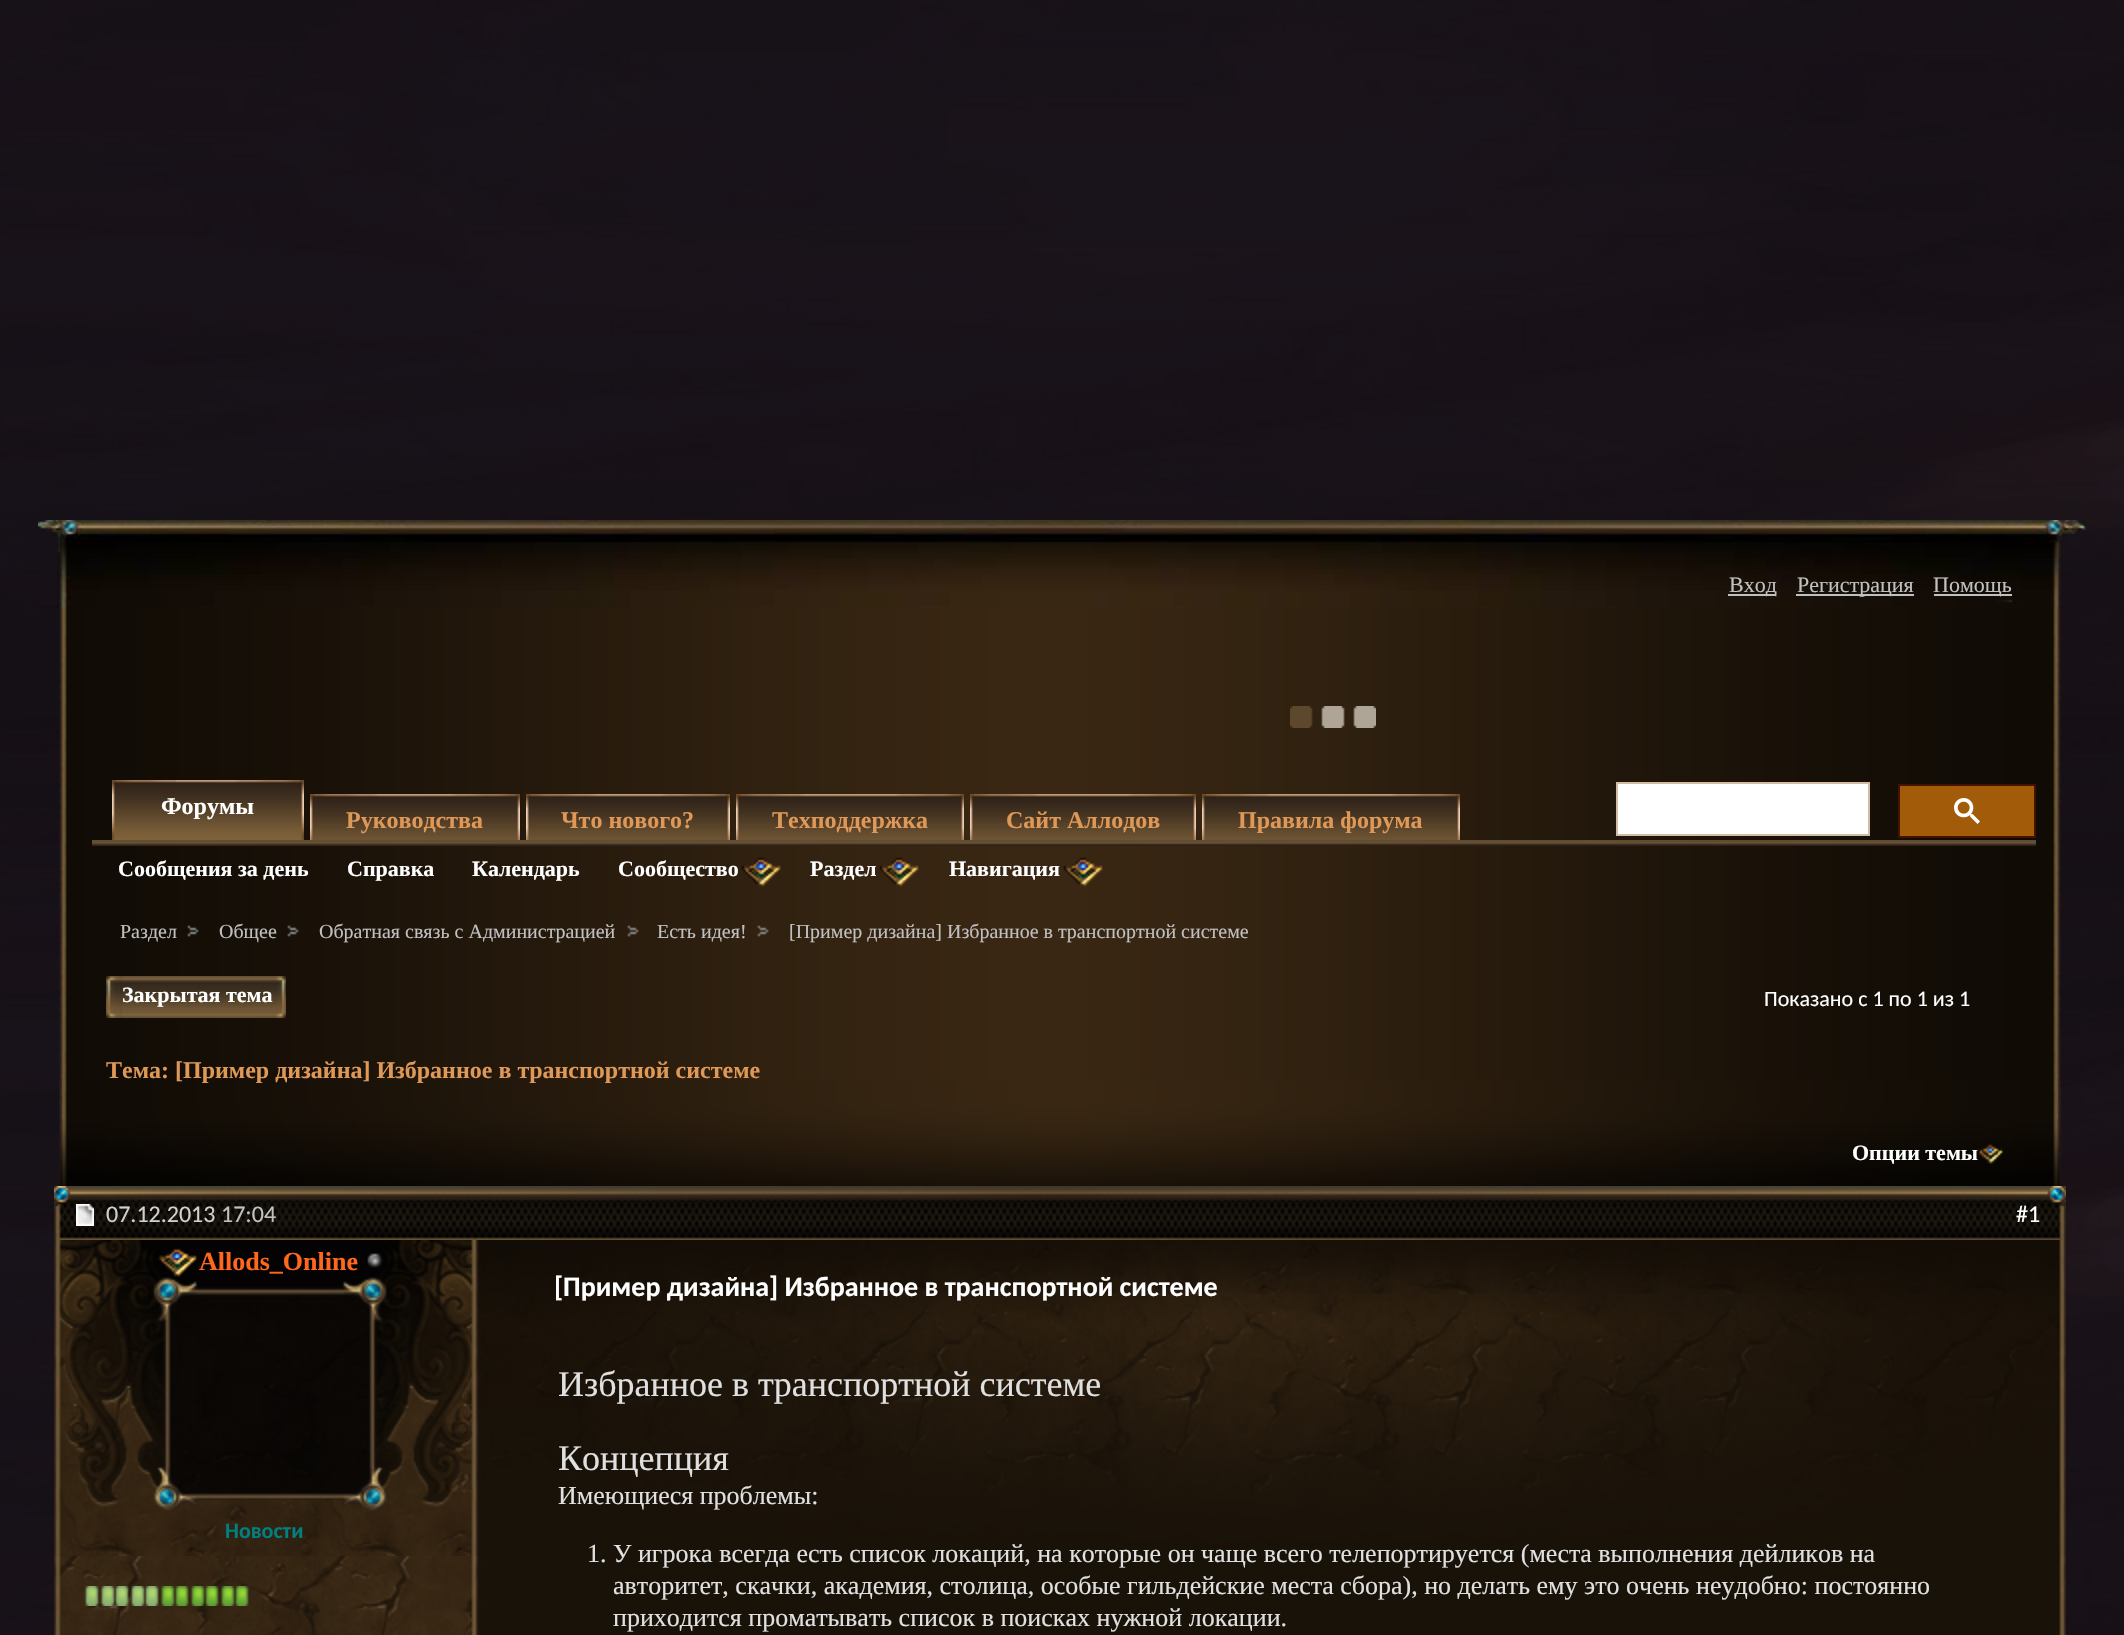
static SkFont makeFont(const char* family, int weight, float size, bool italic = false) {
  SkFontStyle style(weight, SkFontStyle::kNormal_Width,
    italic ? SkFontStyle::kItalic_Slant : SkFontStyle::kUpright_Slant);
  SkFont result(fontMgr->matchFamilyStyle(family, style), size);
  result.setSubpixel(true);
  return result;
}

static void text(SkCanvas* c, const char* s, float x, float y, const SkFont& font, SkColor color) {
  SkPaint ink(SkColor4f::FromColor(color));
  ink.setAntiAlias(true);
  c->drawString(s, x, y, font, ink);
}

static void box(SkCanvas* c, float l, float t, float r, float b, SkColor color) {
  SkPaint ink(SkColor4f::FromColor(color));
  ink.setAntiAlias(true);
  c->drawRect(SkRect::MakeLTRB(l, t, r, b), ink);
}

static void picture(SkCanvas* c, const char* path, float l, float t, float r, float b) {
  auto image = SkImages::DeferredFromEncodedData(SkData::MakeFromFileName(path));
  c->drawImageRect(image, SkRect::MakeLTRB(l, t, r, b), SkSamplingOptions());
}

void draw(SkCanvas* c) {
  SkPaint paint;
  paint.setAntiAlias(true);
  c->clear(0xffffffff);
  picture(c, "img_01.png", 0, 0, 2124, 1635);
  picture(c, "img_02.png", 59, 520, 2061, 1186);
  picture(c, "img_03.png", 38, 520, 2086, 608);
  box(c, 1728, 594, 1776, 596, 0xffc0c0c0);
  SkFont face1 = makeFont("Liberation Serif", 400, 22);
  text(c, "Вход", 1729, 592, face1, 0xffc0c0c0);
  box(c, 1796, 594, 1914, 596, 0xffc0c0c0);
  text(c, "Регистрация", 1797, 592, face1, 0xffc0c0c0);
  box(c, 1934, 594, 2012, 596, 0xffc0c0c0);
  text(c, "Помощь", 1933, 592, face1, 0xffc0c0c0);
  picture(c, "img_04.png", 1290, 706, 1376, 728);
  picture(c, "img_05.png", 92, 840, 2036, 846);
  picture(c, "img_06.png", 112, 780, 176, 840);
  picture(c, "img_07.png", 176, 780, 304, 840);
  SkFont face2 = makeFont("Liberation Serif", 700, 24);
  text(c, "Форумы", 161, 814, face2, 0xffffffff);
  SkFont face3 = makeFont("Liberation Serif", 700, 22);
  text(c, "Сообщения за день", 118, 876, face3, 0xffffffff);
  text(c, "Справка", 347, 876, face3, 0xffffffff);
  text(c, "Календарь", 472, 876, face3, 0xffffffff);
  text(c, "Сообщество", 618, 876, face3, 0xffffffff);
  picture(c, "img_08.png", 741, 857, 781, 887);
  text(c, "Раздел", 810, 876, face3, 0xffffffff);
  picture(c, "img_09.png", 879, 857, 919, 887);
  text(c, "Навигация", 949, 876, face3, 0xffffffff);
  picture(c, "img_10.png", 1063, 857, 1103, 887);
  picture(c, "img_11.png", 1038, 794, 1128, 840);
  picture(c, "img_12.png", 970, 794, 1038, 840);
  picture(c, "img_13.png", 1128, 794, 1196, 840);
  text(c, "Сайт Аллодов", 1006, 828, face2, 0xffde9858);
  picture(c, "img_14.png", 1270, 794, 1392, 840);
  picture(c, "img_12.png", 1202, 794, 1270, 840);
  picture(c, "img_13.png", 1392, 794, 1460, 840);
  text(c, "Правила форума", 1238, 828, face2, 0xffde9858);
  picture(c, "img_15.png", 378, 794, 452, 840);
  picture(c, "img_12.png", 310, 794, 378, 840);
  picture(c, "img_13.png", 452, 794, 520, 840);
  text(c, "Руководства", 346, 828, face2, 0xffde9858);
  picture(c, "img_16.png", 596, 794, 662, 840);
  picture(c, "img_17.png", 526, 794, 596, 840);
  picture(c, "img_13.png", 662, 794, 730, 840);
  text(c, "Что нового?", 561, 828, face2, 0xffde9858);
  picture(c, "img_18.png", 804, 794, 896, 840);
  picture(c, "img_12.png", 736, 794, 804, 840);
  picture(c, "img_13.png", 896, 794, 964, 840);
  text(c, "Техподдержка", 772, 828, face2, 0xffde9858);
  paint.setColor(0xffffffff);
  c->drawRect(SkRect::MakeLTRB(1617, 783, 1869, 835), paint);
  paint.setStyle(SkPaint::kStroke_Style);
  paint.setStrokeWidth(2);
  paint.setColor(0xffd3bca1);
  c->drawRect(SkRect::MakeLTRB(1617, 783, 1869, 835), paint);
  paint.setStyle(SkPaint::kFill_Style);
  paint.setColor(0xffa25b08);
  c->drawRect(SkRect::MakeLTRB(1899, 785, 2035, 837), paint);
  paint.setStyle(SkPaint::kStroke_Style);
  paint.setColor(0xff461200);
  c->drawRect(SkRect::MakeLTRB(1899, 785, 2035, 837), paint);
  picture(c, "img_19.png", 1954, 798, 1980, 824);
  picture(c, "img_20.png", 187, 925, 199, 937);
  SkFont face4 = makeFont("Liberation Serif", 400, 20);
  text(c, "Раздел", 120, 938, face4, 0xffc0c0c0);
  picture(c, "img_21.png", 287, 925, 299, 937);
  text(c, "Общее", 219, 938, face4, 0xffc0c0c0);
  picture(c, "img_22.png", 627, 925, 639, 937);
  text(c, "Обратная связь с Администрацией", 319, 938, face4, 0xffc0c0c0);
  picture(c, "img_23.png", 757, 925, 769, 937);
  text(c, "Есть идея!", 657, 938, face4, 0xffc0c0c0);
  text(c, "[Пример дизайна] Избранное в транспортной системе", 789, 938, face4, 0xffc0c0c0);
  picture(c, "img_24.png", 122, 976, 286, 1018);
  picture(c, "img_25.png", 106, 976, 122, 1018);
  text(c, "Закрытая тема", 122, 1002, face3, 0xffffffff);
  SkFont face5 = makeFont("Carlito", 400, 22);
  text(c, "Показано с 1 по 1 из 1", 1764, 1006, face5, 0xffffffff);
  picture(c, "img_27.png", 59, 1080, 2061, 1186);
  text(c, "Тема: [Пример дизайна] Избранное в транспортной системе", 106, 1078, face2, 0xffde9858);
  text(c, "Опции темы", 1852, 1160, face3, 0xffffffff);
  picture(c, "img_26.png", 1978, 1144, 2003, 1164);
  picture(c, "img_28.png", 54, 1186, 2066, 1240);
  picture(c, "img_29.png", 76, 1204, 94, 1226);
  SkFont face6 = makeFont("Carlito", 400, 24);
  text(c, "07.12.2013", 106, 1222, face6, 0xffd0d0d0);
  text(c, "17:04", 221, 1222, face6, 0xffc0c0c0);
  text(c, "#1", 2016, 1222, face6, 0xffffffff);
  picture(c, "img_30.png", 54, 1556, 2066, 1635);
  picture(c, "img_31.png", 54, 1240, 2066, 1556);
  picture(c, "img_32.png", 159, 1247, 197, 1277);
  SkFont face7 = makeFont("Liberation Serif", 700, 26);
  text(c, "Allods_Online", 199, 1270, face7, 0xffff671c);
  picture(c, "img_33.png", 367, 1253, 383, 1268);
  SkFont face8 = makeFont("Carlito", 700, 22);
  text(c, "Новости", 225, 1538, face8, 0xff008080);
  picture(c, "img_34.png", 84, 1586, 99, 1606);
  picture(c, "img_35.png", 100, 1586, 115, 1606);
  picture(c, "img_36.png", 114, 1586, 129, 1606);
  picture(c, "img_37.png", 130, 1586, 145, 1606);
  picture(c, "img_38.png", 144, 1586, 159, 1606);
  picture(c, "img_39.png", 160, 1586, 175, 1606);
  picture(c, "img_40.png", 174, 1586, 189, 1606);
  picture(c, "img_41.png", 190, 1586, 205, 1606);
  picture(c, "img_42.png", 204, 1586, 219, 1606);
  picture(c, "img_43.png", 220, 1586, 235, 1606);
  picture(c, "img_44.png", 234, 1586, 249, 1606);
  SkFont face9 = makeFont("Carlito", 700, 28);
  text(c, "[Пример дизайна] Избранное в транспортной системе", 554, 1296, face9, 0xffffffff);
  SkFont face10 = makeFont("Liberation Serif", 400, 36);
  text(c, "Избранное в транспортной системе", 558, 1396, face10, 0xffe0e0e0);
  text(c, "Концепция", 558, 1470, face10, 0xffe0e0e0);
  SkFont face11 = makeFont("Liberation Serif", 400, 26);
  text(c, "Имеющиеся проблемы:", 558, 1504, face11, 0xffe0e0e0);
  text(c, "1. У игрока всегда есть список локаций, на которые он чаще всего телепортируется (места выполнения дейликов на", 587, 1562, face11, 0xffe0e0e0);
  text(c, "авторитет, скачки, академия, столица, особые гильдейские места сбора), но делать ему это очень неудобно: постоянно", 613, 1594, face11, 0xffe0e0e0);
  text(c, "приходится проматывать список в поисках нужной локации.", 613, 1626, face11, 0xffe0e0e0);
}
